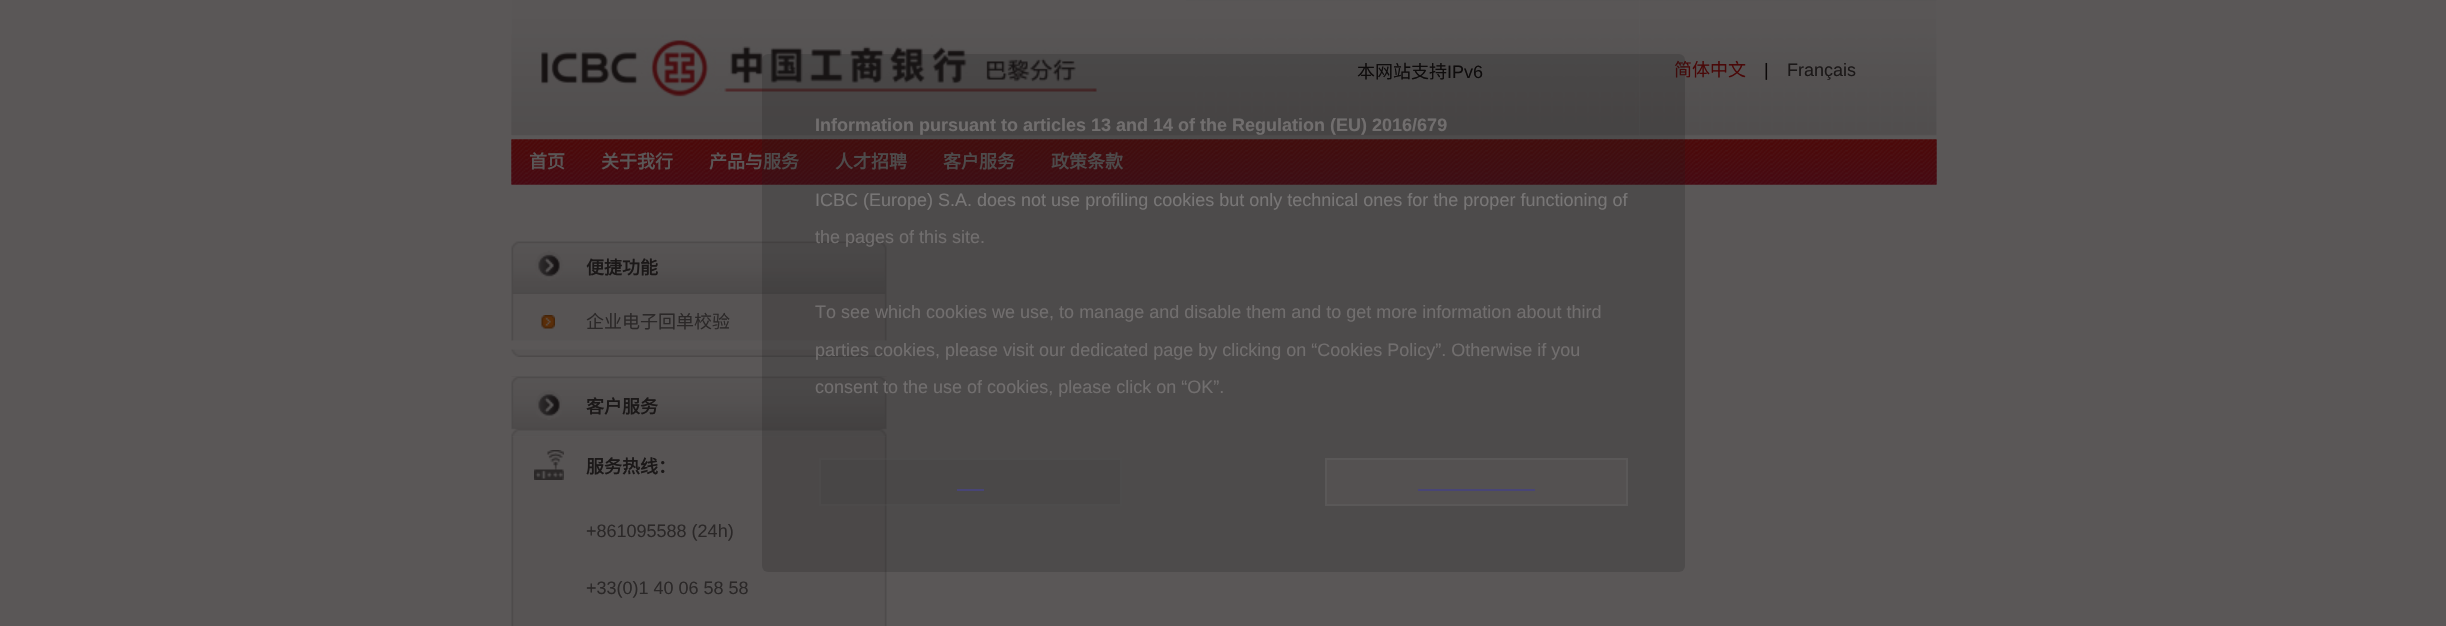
static SkFont makeFont(const char* family, int weight, float size, bool italic = false) {
  SkFontStyle style(weight, SkFontStyle::kNormal_Width,
    italic ? SkFontStyle::kItalic_Slant : SkFontStyle::kUpright_Slant);
  SkFont result(fontMgr->matchFamilyStyle(family, style), size);
  result.setSubpixel(true);
  return result;
}

static void text(SkCanvas* c, const char* s, float x, float y, const SkFont& font, SkColor color) {
  SkPaint ink(SkColor4f::FromColor(color));
  ink.setAntiAlias(true);
  c->drawString(s, x, y, font, ink);
}

static void box(SkCanvas* c, float l, float t, float r, float b, SkColor color) {
  SkPaint ink(SkColor4f::FromColor(color));
  ink.setAntiAlias(true);
  c->drawRect(SkRect::MakeLTRB(l, t, r, b), ink);
}

static void roundBox(SkCanvas* c, float l, float t, float r, float b, float radius, SkColor color) {
  SkPaint ink(SkColor4f::FromColor(color));
  ink.setAntiAlias(true);
  c->drawRoundRect(SkRect::MakeLTRB(l, t, r, b), radius, radius, ink);
}

static void picture(SkCanvas* c, const char* path, float l, float t, float r, float b) {
  auto image = SkImages::DeferredFromEncodedData(SkData::MakeFromFileName(path));
  c->drawImageRect(image, SkRect::MakeLTRB(l, t, r, b), SkSamplingOptions());
}

void draw(SkCanvas* c) {
  SkPaint paint;
  paint.setAntiAlias(true);
  c->clear(0xff5a5757);
  picture(c, "img_01.png", 511, 0, 1203, 136);
  picture(c, "img_02.png", 511, 0, 1186, 135);
  picture(c, "img_03.png", 1203, 0, 1640, 136);
  SkFont face1 = makeFont("Noto Sans CJK SC", 400, 18);
  text(c, "本网站支持", 1357, 78, face1, 0xff0b0808);
  SkFont face2 = makeFont("Liberation Sans", 400, 18);
  text(c, "IPv6", 1447, 78, face2, 0xff0b0808);
  picture(c, "img_04.png", 1639, 0, 1937, 136);
  text(c, "简体中文", 1674, 76, face1, 0xff4a0808);
  text(c, "|", 1764, 76, face2, 0xff0b0808);
  text(c, "Français", 1787, 76, face2, 0xff1b1818);
  picture(c, "img_05.png", 511, 139, 1937, 185);
  picture(c, "img_06.png", 511, 139, 1937, 185);
  SkFont face3 = makeFont("Noto Sans CJK SC", 700, 18);
  text(c, "产品与服务", 709, 168, face3, 0xff5a5757);
  text(c, "人才招聘", 835, 168, face3, 0xff5a5757);
  text(c, "客户服务", 943, 168, face3, 0xff5a5757);
  text(c, "政策条款", 1051, 168, face3, 0xff5a5757);
  picture(c, "img_07.png", 511, 241, 887, 294);
  picture(c, "img_09.png", 511, 294, 887, 341);
  picture(c, "img_11.png", 511, 349, 887, 357);
  picture(c, "img_12.png", 511, 376, 887, 437);
  picture(c, "img_14.png", 511, 436, 887, 626);
  roundBox(c, 762, 54, 1685, 572, 6, 0x331a1a1a);
  SkFont face4 = makeFont("Liberation Sans", 700, 18);
  text(c, "Information pursuant to articles 13 and 14 of the Regulation (EU) 2016/679", 815, 131, face4, 0xff716e6e);
  text(c, "ICBC (Europe) S.A. does not use profiling cookies but only technical ones for the proper functioning of", 815, 206, face2, 0xff787676);
  text(c, "the pages of this site.", 815, 243, face2, 0xff716e6e);
  text(c, "To see which cookies we use, to manage and disable them and to get more information about third", 815, 318, face2, 0xff716e6e);
  text(c, "parties cookies, please visit our dedicated page by clicking on “Cookies Policy”. Otherwise if you", 815, 356, face2, 0xff716e6e);
  text(c, "consent to the use of cookies, please click on “OK”.", 815, 393, face2, 0xff716e6e);
  box(c, 819, 458, 1122, 506, 0x333a3a3a);
  paint.setStyle(SkPaint::kStroke_Style);
  paint.setStrokeWidth(2);
  paint.setColor(0x335a5a5a);
  c->drawRect(SkRect::MakeLTRB(820, 459, 1121, 505), paint);
  box(c, 957, 489, 984, 491, 0xff484576);
  paint.setStyle(SkPaint::kFill_Style);
  paint.setColor(0xff545151);
  c->drawRect(SkRect::MakeLTRB(1326, 459, 1627, 505), paint);
  paint.setStyle(SkPaint::kStroke_Style);
  paint.setColor(0xff5a5858);
  c->drawRect(SkRect::MakeLTRB(1326, 459, 1627, 505), paint);
  box(c, 1418, 489, 1535, 491, 0xff484576);
  text(c, "首页", 529, 168, face3, 0xff5a5757);
  text(c, "关于我行", 601, 168, face3, 0xff5a5757);
  picture(c, "img_08.png", 534, 250, 564, 281);
  text(c, "便捷功能", 586, 274, face3, 0xff1b1818);
  picture(c, "img_10.png", 541, 315, 555, 329);
  text(c, "企业电子回单校验", 586, 328, face1, 0xff2b2828);
  picture(c, "img_13.png", 536, 390, 562, 420);
  text(c, "客户服务", 586, 413, face3, 0xff1b1818);
  picture(c, "img_15.png", 534, 450, 564, 480);
  text(c, "服务热线：", 586, 473, face3, 0xff1b1818);
  text(c, "+861095588 (24h)", 586, 537, face2, 0xff2b2828);
  text(c, "+33(0)1 40 06 58 58", 586, 594, face2, 0xff2b2828);
}
